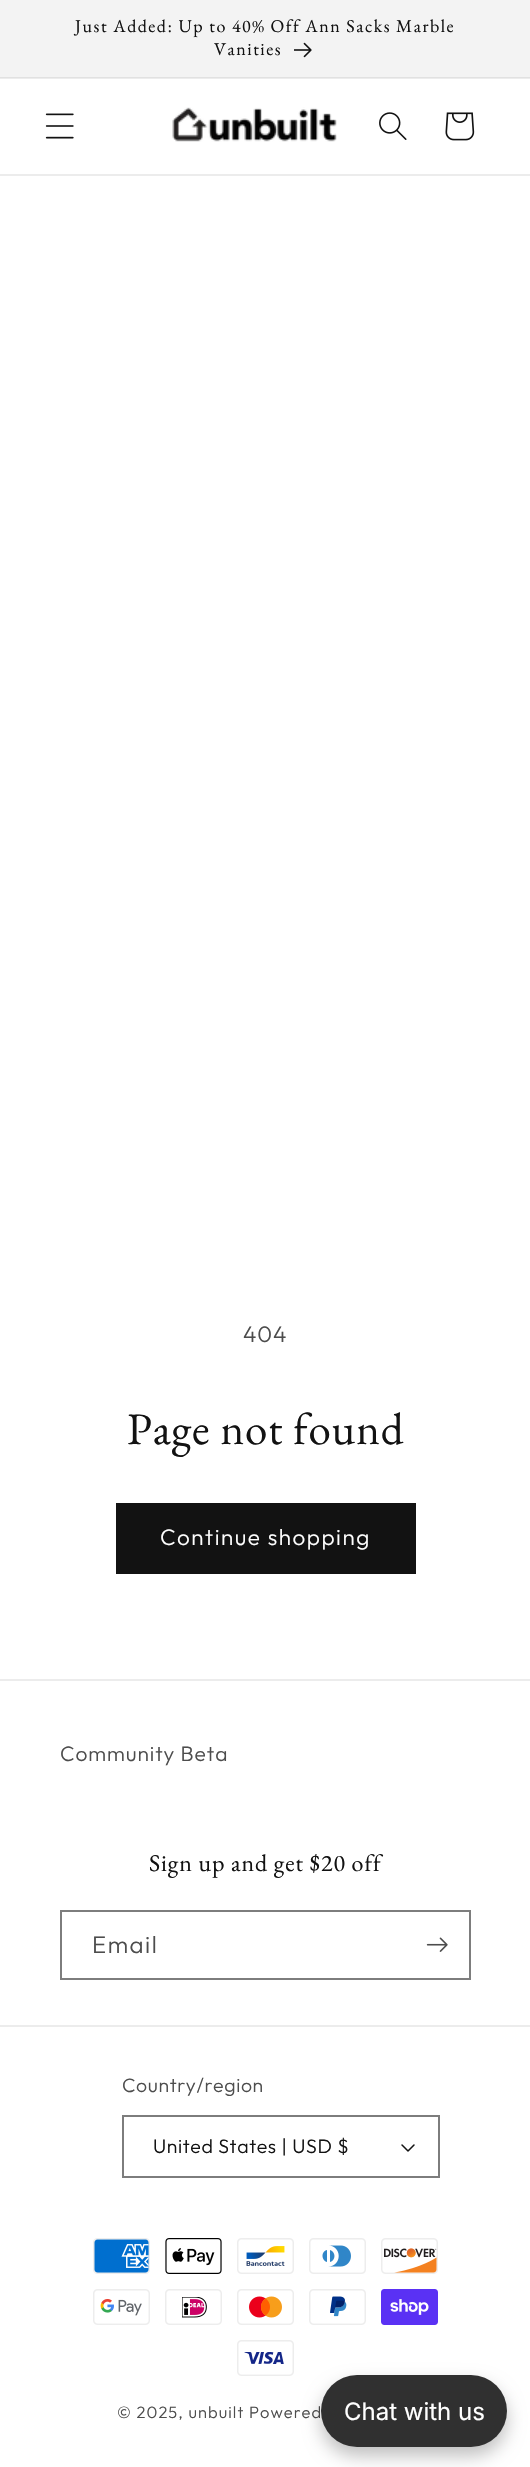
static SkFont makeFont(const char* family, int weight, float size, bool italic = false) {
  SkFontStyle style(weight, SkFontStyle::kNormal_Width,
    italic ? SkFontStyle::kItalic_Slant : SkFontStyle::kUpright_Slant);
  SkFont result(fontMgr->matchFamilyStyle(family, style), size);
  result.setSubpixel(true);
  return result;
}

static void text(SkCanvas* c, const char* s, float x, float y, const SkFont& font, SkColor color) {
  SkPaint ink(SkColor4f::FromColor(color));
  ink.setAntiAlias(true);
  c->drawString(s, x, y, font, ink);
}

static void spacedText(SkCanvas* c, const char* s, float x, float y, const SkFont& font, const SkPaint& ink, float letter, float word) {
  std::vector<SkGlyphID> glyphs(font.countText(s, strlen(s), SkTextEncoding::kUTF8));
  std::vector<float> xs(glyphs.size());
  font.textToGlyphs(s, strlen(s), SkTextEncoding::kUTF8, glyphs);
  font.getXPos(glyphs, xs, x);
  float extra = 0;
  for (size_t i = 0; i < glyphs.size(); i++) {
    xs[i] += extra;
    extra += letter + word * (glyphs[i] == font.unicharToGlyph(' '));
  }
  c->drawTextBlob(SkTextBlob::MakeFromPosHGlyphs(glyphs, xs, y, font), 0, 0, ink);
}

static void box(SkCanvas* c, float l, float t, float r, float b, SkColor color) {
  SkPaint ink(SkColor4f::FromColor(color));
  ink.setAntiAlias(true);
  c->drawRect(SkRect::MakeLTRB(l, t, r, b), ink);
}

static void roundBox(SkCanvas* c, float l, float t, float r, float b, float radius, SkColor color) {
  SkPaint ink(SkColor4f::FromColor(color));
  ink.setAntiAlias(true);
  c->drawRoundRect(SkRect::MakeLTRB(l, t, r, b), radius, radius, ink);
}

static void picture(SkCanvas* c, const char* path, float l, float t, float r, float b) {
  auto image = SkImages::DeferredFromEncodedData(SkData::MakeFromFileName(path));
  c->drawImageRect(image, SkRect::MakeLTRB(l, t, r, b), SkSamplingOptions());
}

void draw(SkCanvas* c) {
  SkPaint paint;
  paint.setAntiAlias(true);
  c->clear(0xffffffff);
  box(c, 0, 78, 530, 79, 0xffececec);
  box(c, 0, 0, 530, 77, 0xfff3f3f3);
  box(c, 0, 77, 530, 78, 0xffe1e1e1);
  SkFont face1 = makeFont("EB Garamond", 400, 18);
  paint.setColor(0xff121212);
  spacedText(c, "Just Added: Up to 40% Off Ann Sacks Marble", 75, 32, face1, paint, 1.5f, 0);
  spacedText(c, "Vanities", 214, 55, face1, paint, 1.5f, 0);
  picture(c, "img_01.png", 294, 42, 312, 58);
  box(c, 0, 174, 530, 176, 0xffececec);
  picture(c, "img_02.png", 45, 113, 74, 139);
  picture(c, "img_03.png", 172, 107, 337, 142);
  picture(c, "img_04.png", 379, 112, 407, 140);
  picture(c, "img_05.png", 445, 112, 475, 141);
  SkFont face2 = makeFont("Outfit", 300, 22.5f);
  paint.setColor(0xff4d4d4d);
  spacedText(c, "404", 243, 1342, face2, paint, 0.9f, 0);
  SkFont face3 = makeFont("EB Garamond", 400, 45);
  paint.setColor(0xff121212);
  spacedText(c, "Page not found", 127, 1444, face3, paint, 0.9f, 0);
  box(c, 116, 1503, 416, 1574, 0xff121212);
  paint.setColor(0xffffffff);
  spacedText(c, "Continue shopping", 160, 1545, face2, paint, 1.5f, 0);
  box(c, 0, 1679, 530, 1681, 0xffececec);
  SkFont face4 = makeFont("Outfit", 300, 21);
  paint.setColor(0xff4d4d4d);
  spacedText(c, "Community Beta", 60, 1761, face4, paint, 0.9f, 0);
  SkFont face5 = makeFont("EB Garamond", 400, 24);
  paint.setColor(0xff121212);
  spacedText(c, "Sign up and get $20 off", 149, 1871, face5, paint, 0.9f, 0);
  paint.setStyle(SkPaint::kStroke_Style);
  paint.setStrokeWidth(2);
  paint.setColor(0xff7d7d7d);
  c->drawRect(SkRect::MakeLTRB(61, 1911, 470, 1979), paint);
  SkFont face6 = makeFont("Outfit", 300, 24);
  paint.setStyle(SkPaint::kFill_Style);
  paint.setColor(0xff4d4d4d);
  spacedText(c, "Email", 92, 1953, face6, paint, 1.5f, 0);
  picture(c, "img_06.png", 426, 1937, 448, 1952);
  box(c, 0, 2025, 530, 2027, 0xffececec);
  SkFont face7 = makeFont("Outfit", 300, 19.5f);
  spacedText(c, "Country/region", 122, 2092, face7, paint, 0.6f, 0);
  picture(c, "img_07.png", 401, 2144, 415, 2152);
  paint.setStyle(SkPaint::kStroke_Style);
  paint.setColor(0xff7d7d7d);
  c->drawRect(SkRect::MakeLTRB(123, 2116, 439, 2177), paint);
  paint.setStyle(SkPaint::kFill_Style);
  paint.setColor(0xff121212);
  spacedText(c, "United States | USD $", 153, 2153, face7, paint, 0.6f, 0);
  picture(c, "img_08.png", 93, 2238, 150, 2274);
  picture(c, "img_09.png", 165, 2238, 222, 2274);
  picture(c, "img_10.png", 237, 2238, 294, 2274);
  picture(c, "img_11.png", 309, 2238, 366, 2274);
  picture(c, "img_12.png", 381, 2238, 438, 2274);
  picture(c, "img_13.png", 93, 2289, 150, 2325);
  picture(c, "img_14.png", 165, 2289, 222, 2325);
  picture(c, "img_15.png", 237, 2289, 294, 2325);
  picture(c, "img_16.png", 309, 2289, 366, 2325);
  picture(c, "img_17.png", 381, 2289, 438, 2325);
  picture(c, "img_18.png", 237, 2340, 294, 2376);
  SkFont face8 = makeFont("Outfit", 300, 16.5f);
  paint.setColor(0xff4d4d4d);
  spacedText(c, "© 2025, unbuilt Powered", 117, 2418, face8, paint, 1.05f, 0);
  paint.setColor(0x40000000);
  paint.setMaskFilter(SkMaskFilter::MakeBlur(kNormal_SkBlurStyle, 9));
  c->drawRoundRect(SkRect::MakeLTRB(321, 2384, 507, 2456), 36, 36, paint);
  paint.setMaskFilter(nullptr);
  roundBox(c, 321, 2375, 507, 2447, 36, 0xff303030);
  SkFont face9 = makeFont("Inter", 400, 24);
  text(c, "Chat with us", 344, 2420, face9, 0xffffffff);
}
